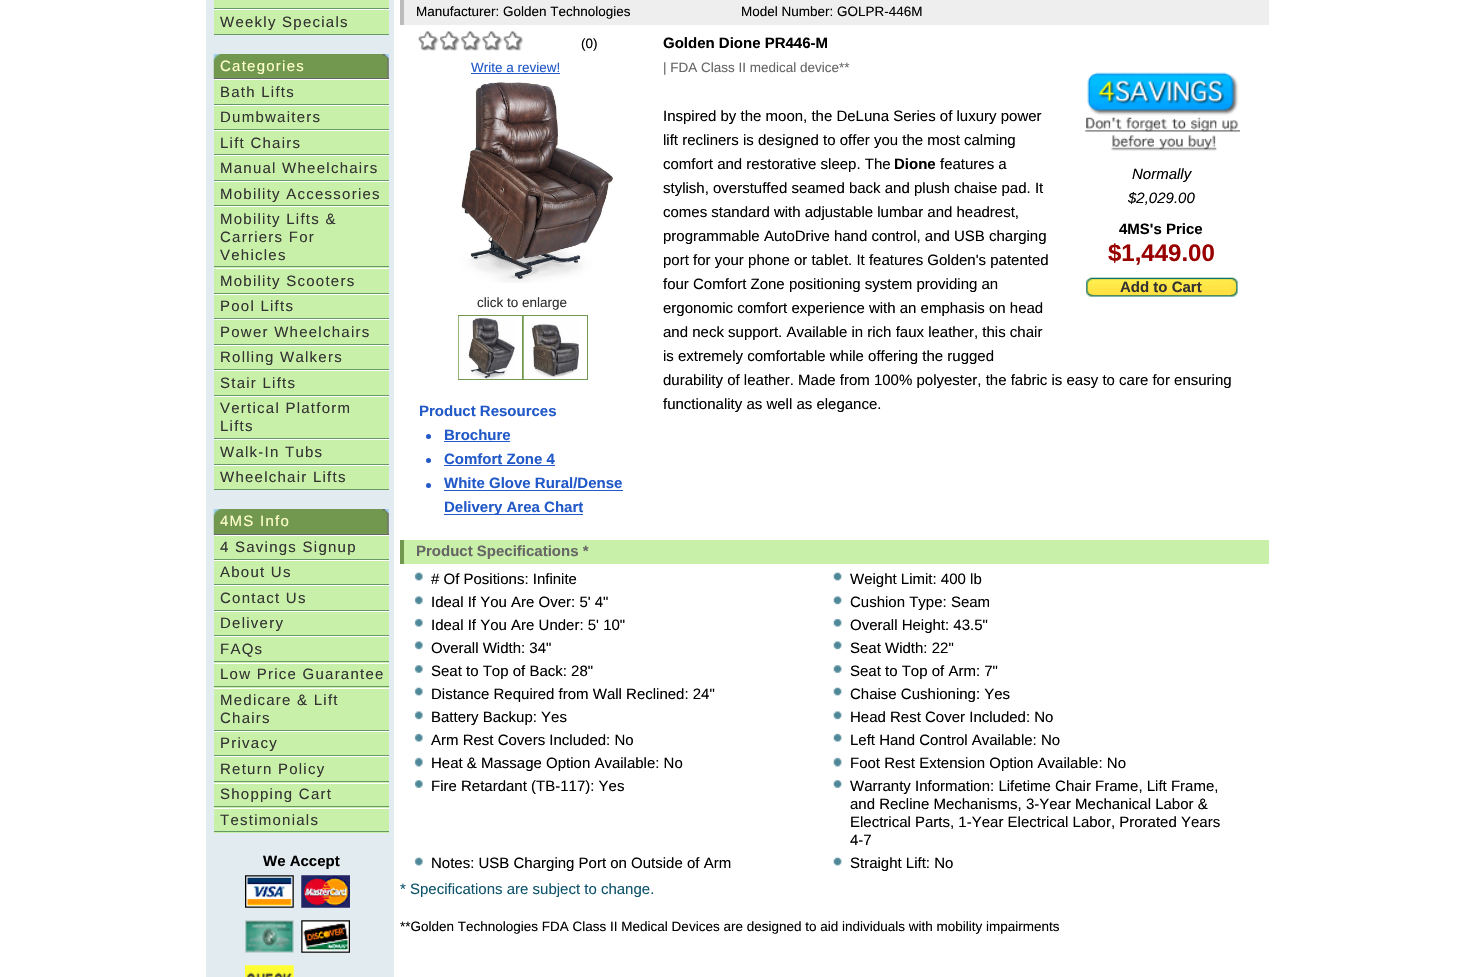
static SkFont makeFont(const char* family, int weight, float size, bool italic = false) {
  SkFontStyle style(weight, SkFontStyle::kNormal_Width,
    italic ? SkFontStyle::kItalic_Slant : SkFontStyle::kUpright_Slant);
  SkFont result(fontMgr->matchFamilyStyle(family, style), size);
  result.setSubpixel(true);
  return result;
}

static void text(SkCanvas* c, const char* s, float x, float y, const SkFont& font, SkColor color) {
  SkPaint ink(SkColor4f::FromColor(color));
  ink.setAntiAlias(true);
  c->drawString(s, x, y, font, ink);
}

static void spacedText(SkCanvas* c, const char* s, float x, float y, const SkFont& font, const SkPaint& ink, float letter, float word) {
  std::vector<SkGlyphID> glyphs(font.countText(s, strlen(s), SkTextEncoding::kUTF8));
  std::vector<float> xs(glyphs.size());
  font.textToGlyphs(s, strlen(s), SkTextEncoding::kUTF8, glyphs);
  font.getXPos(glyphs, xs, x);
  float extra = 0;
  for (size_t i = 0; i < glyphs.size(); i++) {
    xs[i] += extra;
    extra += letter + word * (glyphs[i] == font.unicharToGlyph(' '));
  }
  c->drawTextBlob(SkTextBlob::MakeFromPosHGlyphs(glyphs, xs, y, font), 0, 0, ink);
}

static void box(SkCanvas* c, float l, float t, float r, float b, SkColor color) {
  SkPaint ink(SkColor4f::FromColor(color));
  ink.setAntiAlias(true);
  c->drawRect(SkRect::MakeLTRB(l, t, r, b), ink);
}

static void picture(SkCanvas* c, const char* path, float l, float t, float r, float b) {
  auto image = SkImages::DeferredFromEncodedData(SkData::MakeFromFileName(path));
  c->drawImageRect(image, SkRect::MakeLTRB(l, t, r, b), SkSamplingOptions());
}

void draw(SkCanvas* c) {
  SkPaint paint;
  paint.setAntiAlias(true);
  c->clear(0xffffffff);
  box(c, 206, 0, 394, 977, 0xffe2ebf0);
  box(c, 214, 0, 389, 8, 0xffc9f0a8);
  box(c, 214, 8, 389, 9, 0xff669966);
  box(c, 214, 10, 389, 34, 0xffc9f0a8);
  box(c, 214, 9, 389, 10, 0xffffffff);
  box(c, 214, 34, 389, 35, 0xff669966);
  SkFont face1 = makeFont("Liberation Sans", 400, 15);
  paint.setColor(0xff333333);
  spacedText(c, "Weekly Specials", 220, 27, face1, paint, 1.25f, 0);
  picture(c, "img_01.png", 213, 54, 389, 79);
  box(c, 214, 78, 389, 79, 0xff666666);
  paint.setColor(0xffffffcc);
  spacedText(c, "Categories", 220, 71, face1, paint, 1.25f, 0);
  box(c, 214, 80, 389, 104, 0xffc9f0a8);
  box(c, 214, 79, 389, 80, 0xffffffff);
  box(c, 214, 104, 389, 105, 0xff669966);
  paint.setColor(0xff333333);
  spacedText(c, "Bath Lifts", 220, 97, face1, paint, 1.25f, 0);
  box(c, 214, 106, 389, 129, 0xffc9f0a8);
  box(c, 214, 105, 389, 106, 0xffffffff);
  box(c, 214, 129, 389, 130, 0xff669966);
  spacedText(c, "Dumbwaiters", 220, 122, face1, paint, 1.25f, 0);
  box(c, 214, 131, 389, 154, 0xffc9f0a8);
  box(c, 214, 130, 389, 131, 0xffffffff);
  box(c, 214, 154, 389, 155, 0xff669966);
  spacedText(c, "Lift Chairs", 220, 148, face1, paint, 1.25f, 0);
  box(c, 214, 156, 389, 180, 0xffc9f0a8);
  box(c, 214, 155, 389, 156, 0xffffffff);
  box(c, 214, 180, 389, 181, 0xff669966);
  spacedText(c, "Manual Wheelchairs", 220, 173, face1, paint, 1.25f, 0);
  box(c, 214, 182, 389, 205, 0xffc9f0a8);
  box(c, 214, 181, 389, 182, 0xffffffff);
  box(c, 214, 205, 389, 206, 0xff669966);
  spacedText(c, "Mobility Accessories", 220, 199, face1, paint, 1.25f, 0);
  box(c, 214, 207, 389, 268, 0xffc9f0a8);
  box(c, 214, 206, 389, 207, 0xffffffff);
  box(c, 214, 266, 389, 267, 0xff669966);
  spacedText(c, "Mobility Lifts &", 220, 224, face1, paint, 1.25f, 0);
  spacedText(c, "Carriers For", 220, 242, face1, paint, 1.25f, 0);
  spacedText(c, "Vehicles", 220, 260, face1, paint, 1.25f, 0);
  box(c, 214, 269, 389, 293, 0xffc9f0a8);
  box(c, 214, 268, 389, 269, 0xffffffff);
  box(c, 214, 293, 389, 294, 0xff669966);
  spacedText(c, "Mobility Scooters", 220, 286, face1, paint, 1.25f, 0);
  box(c, 214, 295, 389, 318, 0xffc9f0a8);
  box(c, 214, 294, 389, 295, 0xffffffff);
  box(c, 214, 318, 389, 319, 0xff669966);
  spacedText(c, "Pool Lifts", 220, 311, face1, paint, 1.25f, 0);
  box(c, 214, 320, 389, 344, 0xffc9f0a8);
  box(c, 214, 319, 389, 320, 0xffffffff);
  box(c, 214, 344, 389, 345, 0xff669966);
  spacedText(c, "Power Wheelchairs", 220, 337, face1, paint, 1.25f, 0);
  box(c, 214, 346, 389, 369, 0xffc9f0a8);
  box(c, 214, 345, 389, 346, 0xffffffff);
  box(c, 214, 369, 389, 370, 0xff669966);
  spacedText(c, "Rolling Walkers", 220, 362, face1, paint, 1.25f, 0);
  box(c, 214, 371, 389, 395, 0xffc9f0a8);
  box(c, 214, 370, 389, 371, 0xffffffff);
  box(c, 214, 395, 389, 396, 0xff669966);
  spacedText(c, "Stair Lifts", 220, 388, face1, paint, 1.25f, 0);
  box(c, 214, 397, 389, 438, 0xffc9f0a8);
  box(c, 214, 396, 389, 397, 0xffffffff);
  box(c, 214, 438, 389, 439, 0xff669966);
  spacedText(c, "Vertical Platform", 220, 413, face1, paint, 1.25f, 0);
  spacedText(c, "Lifts", 220, 431, face1, paint, 1.25f, 0);
  box(c, 214, 440, 389, 464, 0xffc9f0a8);
  box(c, 214, 439, 389, 440, 0xffffffff);
  box(c, 214, 464, 389, 465, 0xff669966);
  spacedText(c, "Walk-In Tubs", 220, 457, face1, paint, 1.25f, 0);
  box(c, 214, 466, 389, 489, 0xffc9f0a8);
  box(c, 214, 465, 389, 466, 0xffffffff);
  box(c, 214, 489, 389, 490, 0xff669966);
  spacedText(c, "Wheelchair Lifts", 220, 482, face1, paint, 1.25f, 0);
  picture(c, "img_02.png", 213, 509, 389, 536);
  box(c, 214, 534, 389, 535, 0xff666666);
  paint.setColor(0xffffffcc);
  spacedText(c, "4MS Info", 220, 526, face1, paint, 1.25f, 0);
  box(c, 214, 536, 389, 559, 0xffc9f0a8);
  box(c, 214, 535, 389, 536, 0xffffffff);
  box(c, 214, 559, 389, 560, 0xff669966);
  paint.setColor(0xff333333);
  spacedText(c, "4 Savings Signup", 220, 552, face1, paint, 1.25f, 0);
  box(c, 214, 561, 389, 584, 0xffc9f0a8);
  box(c, 214, 560, 389, 561, 0xffffffff);
  box(c, 214, 584, 389, 585, 0xff669966);
  spacedText(c, "About Us", 220, 577, face1, paint, 1.25f, 0);
  box(c, 214, 586, 389, 610, 0xffc9f0a8);
  box(c, 214, 585, 389, 586, 0xffffffff);
  box(c, 214, 610, 389, 611, 0xff669966);
  spacedText(c, "Contact Us", 220, 603, face1, paint, 1.25f, 0);
  box(c, 214, 612, 389, 635, 0xffc9f0a8);
  box(c, 214, 611, 389, 612, 0xffffffff);
  box(c, 214, 635, 389, 636, 0xff669966);
  spacedText(c, "Delivery", 220, 628, face1, paint, 1.25f, 0);
  box(c, 214, 637, 389, 663, 0xffc9f0a8);
  box(c, 214, 636, 389, 637, 0xffffffff);
  box(c, 214, 661, 389, 662, 0xff669966);
  spacedText(c, "FAQs", 220, 654, face1, paint, 1.25f, 0);
  box(c, 214, 664, 389, 688, 0xffc9f0a8);
  box(c, 214, 663, 389, 664, 0xffffffff);
  box(c, 214, 686, 389, 687, 0xff669966);
  spacedText(c, "Low Price Guarantee", 220, 679, face1, paint, 1.25f, 0);
  box(c, 214, 689, 389, 730, 0xffc9f0a8);
  box(c, 214, 688, 389, 689, 0xffffffff);
  box(c, 214, 730, 389, 731, 0xff669966);
  spacedText(c, "Medicare & Lift", 220, 705, face1, paint, 1.25f, 0);
  spacedText(c, "Chairs", 220, 723, face1, paint, 1.25f, 0);
  box(c, 214, 732, 389, 755, 0xffc9f0a8);
  box(c, 214, 731, 389, 732, 0xffffffff);
  box(c, 214, 755, 389, 756, 0xff669966);
  spacedText(c, "Privacy", 220, 748, face1, paint, 1.25f, 0);
  box(c, 214, 757, 389, 783, 0xffc9f0a8);
  box(c, 214, 756, 389, 757, 0xffffffff);
  box(c, 214, 781, 389, 782, 0xff669966);
  spacedText(c, "Return Policy", 220, 774, face1, paint, 1.25f, 0);
  box(c, 214, 784, 389, 808, 0xffc9f0a8);
  box(c, 214, 783, 389, 784, 0xffffffff);
  box(c, 214, 806, 389, 807, 0xff669966);
  spacedText(c, "Shopping Cart", 220, 799, face1, paint, 1.25f, 0);
  box(c, 214, 809, 389, 833, 0xffc9f0a8);
  box(c, 214, 808, 389, 809, 0xffffffff);
  box(c, 214, 831, 389, 832, 0xff669966);
  spacedText(c, "Testimonials", 220, 825, face1, paint, 1.25f, 0);
  SkFont face2 = makeFont("Liberation Sans", 700, 15);
  text(c, "We Accept", 263, 866, face2, 0xff000000);
  picture(c, "img_03.png", 245, 875, 294, 908);
  picture(c, "img_04.png", 301, 875, 350, 908);
  picture(c, "img_05.png", 245, 920, 294, 953);
  picture(c, "img_06.png", 301, 920, 350, 953);
  picture(c, "img_07.png", 245, 965, 294, 977);
  box(c, 404, 0, 1269, 25, 0xffeeeeee);
  paint.setColor(0xffbbbbbb);
  c->drawPath(SkPathBuilder().moveTo(400, 25).lineTo(400, -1).lineTo(404, 0).lineTo(404, 25).close().detach(), paint);
  SkFont face3 = makeFont("Liberation Sans", 400, 13.5f);
  text(c, "Manufacturer: Golden Technologies", 416, 16, face3, 0xff000000);
  text(c, "Model Number: GOLPR-446M", 741, 16, face3, 0xff000000);
  picture(c, "img_08.png", 418, 31, 523, 51);
  text(c, "(0)", 581, 48, face3, 0xff000000);
  text(c, "Write a review!", 471, 72, face3, 0xff2159c8);
  box(c, 471, 73, 560, 74, 0xff2159c8);
  picture(c, "img_09.png", 460, 82, 613, 283);
  text(c, "click to enlarge", 477, 307, face3, 0xff333333);
  paint.setStyle(SkPaint::kStroke_Style);
  paint.setStrokeWidth(1);
  paint.setColor(0xff71984e);
  c->drawRect(SkRect::MakeLTRB(458.5f, 315.5f, 522.5f, 379.5f), paint);
  c->drawRect(SkRect::MakeLTRB(523.5f, 315.5f, 587.5f, 379.5f), paint);
  picture(c, "img_10.png", 458, 316, 515, 379);
  picture(c, "img_11.png", 523, 316, 579, 379);
  text(c, "Product Resources", 419, 416, face2, 0xff2159c8);
  paint.setStyle(SkPaint::kFill_Style);
  paint.setColor(0xff2159c8);
  c->drawCircle(428.5f, 436.5f, 2.5f, paint);
  text(c, "Brochure", 444, 440, face2, 0xff2159c8);
  box(c, 444, 441, 510, 442, 0xff2159c8);
  c->drawCircle(428.5f, 460.5f, 2.5f, paint);
  text(c, "Comfort Zone 4", 444, 464, face2, 0xff2159c8);
  box(c, 444, 465, 555, 466, 0xff2159c8);
  c->drawCircle(428.5f, 485.5f, 2.5f, paint);
  text(c, "White Glove Rural/Dense", 444, 488, face2, 0xff2159c8);
  box(c, 444, 490, 623, 491, 0xff2159c8);
  box(c, 444, 514, 583, 515, 0xff2159c8);
  text(c, "Delivery Area Chart", 444, 512, face2, 0xff2159c8);
  text(c, "Golden Dione PR446-M", 663, 48, face2, 0xff000000);
  text(c, "| FDA Class II medical device**", 663, 72, face3, 0xff666666);
  text(c, "Inspired by the moon, the DeLuna Series of luxury power", 663, 121, face1, 0xff000000);
  text(c, "lift recliners is designed to offer you the most calming", 663, 145, face1, 0xff000000);
  text(c, "comfort and restorative sleep. The", 663, 169, face1, 0xff000000);
  text(c, "Dione", 894, 169, face2, 0xff000000);
  text(c, "features a", 940, 169, face1, 0xff000000);
  text(c, "stylish, overstuffed seamed back and plush chaise pad. It", 663, 193, face1, 0xff000000);
  text(c, "comes standard with adjustable lumbar and headrest,", 663, 217, face1, 0xff000000);
  text(c, "programmable AutoDrive hand control, and USB charging", 663, 241, face1, 0xff000000);
  text(c, "port for your phone or tablet. It features Golden's patented", 663, 265, face1, 0xff000000);
  text(c, "four Comfort Zone positioning system providing an", 663, 289, face1, 0xff000000);
  text(c, "ergonomic comfort experience with an emphasis on head", 663, 313, face1, 0xff000000);
  text(c, "and neck support. Available in rich faux leather, this chair", 663, 337, face1, 0xff000000);
  text(c, "is extremely comfortable while offering the rugged", 663, 361, face1, 0xff000000);
  text(c, "durability of leather. Made from 100% polyester, the fabric is easy to care for ensuring", 663, 385, face1, 0xff000000);
  text(c, "functionality as well as elegance.", 663, 409, face1, 0xff000000);
  picture(c, "img_12.png", 1084, 72, 1240, 151);
  SkFont face4 = makeFont("Liberation Sans", 400, 15, true);
  text(c, "Normally", 1132, 179, face4, 0xff000000);
  text(c, "$2,029.00", 1128, 203, face4, 0xff000000);
  text(c, "4MS's Price", 1119, 234, face2, 0xff000000);
  SkFont face5 = makeFont("Liberation Sans", 700, 24);
  text(c, "$1,449.00", 1108, 261, face5, 0xff990000);
  picture(c, "img_13.png", 1086, 277, 1238, 297);
  text(c, "Add to Cart", 1120, 292, face2, 0xff333333);
  box(c, 404, 540, 1269, 564, 0xffc9f0a8);
  box(c, 400, 540, 404, 564, 0xff71984e);
  text(c, "Product Specifications *", 416, 556, face2, 0xff666666);
  picture(c, "img_14.png", 414, 572, 423, 581);
  text(c, "# Of Positions: Infinite", 431, 584, face1, 0xff000000);
  picture(c, "img_15.png", 833, 572, 842, 581);
  text(c, "Weight Limit: 400 lb", 850, 584, face1, 0xff000000);
  picture(c, "img_16.png", 414, 596, 423, 605);
  text(c, "Ideal If You Are Over: 5' 4\"", 431, 607, face1, 0xff000000);
  picture(c, "img_17.png", 833, 596, 842, 605);
  text(c, "Cushion Type: Seam", 850, 607, face1, 0xff000000);
  picture(c, "img_18.png", 414, 618, 423, 627);
  text(c, "Ideal If You Are Under: 5' 10\"", 431, 630, face1, 0xff000000);
  picture(c, "img_19.png", 833, 618, 842, 627);
  text(c, "Overall Height: 43.5\"", 850, 630, face1, 0xff000000);
  picture(c, "img_16.png", 414, 641, 423, 650);
  text(c, "Overall Width: 34\"", 431, 653, face1, 0xff000000);
  picture(c, "img_17.png", 833, 641, 842, 650);
  text(c, "Seat Width: 22\"", 850, 653, face1, 0xff000000);
  picture(c, "img_20.png", 414, 665, 423, 673);
  text(c, "Seat to Top of Back: 28\"", 431, 676, face1, 0xff000000);
  picture(c, "img_21.png", 833, 665, 842, 673);
  text(c, "Seat to Top of Arm: 7\"", 850, 676, face1, 0xff000000);
  picture(c, "img_14.png", 414, 687, 423, 696);
  text(c, "Distance Required from Wall Reclined: 24\"", 431, 699, face1, 0xff000000);
  picture(c, "img_15.png", 833, 687, 842, 696);
  text(c, "Chaise Cushioning: Yes", 850, 699, face1, 0xff000000);
  picture(c, "img_16.png", 414, 711, 423, 720);
  text(c, "Battery Backup: Yes", 431, 722, face1, 0xff000000);
  picture(c, "img_17.png", 833, 711, 842, 720);
  text(c, "Head Rest Cover Included: No", 850, 722, face1, 0xff000000);
  picture(c, "img_18.png", 414, 733, 423, 742);
  text(c, "Arm Rest Covers Included: No", 431, 745, face1, 0xff000000);
  picture(c, "img_19.png", 833, 733, 842, 742);
  text(c, "Left Hand Control Available: No", 850, 745, face1, 0xff000000);
  picture(c, "img_22.png", 414, 757, 423, 767);
  text(c, "Heat & Massage Option Available: No", 431, 768, face1, 0xff000000);
  picture(c, "img_23.png", 833, 757, 842, 767);
  text(c, "Foot Rest Extension Option Available: No", 850, 768, face1, 0xff000000);
  picture(c, "img_20.png", 414, 780, 423, 788);
  text(c, "Fire Retardant (TB-117): Yes", 431, 791, face1, 0xff000000);
  picture(c, "img_21.png", 833, 780, 842, 788);
  text(c, "Warranty Information: Lifetime Chair Frame, Lift Frame,", 850, 791, face1, 0xff000000);
  text(c, "and Recline Mechanisms, 3-Year Mechanical Labor &", 850, 809, face1, 0xff000000);
  text(c, "Electrical Parts, 1-Year Electrical Labor, Prorated Years", 850, 827, face1, 0xff000000);
  text(c, "4-7", 850, 845, face1, 0xff000000);
  picture(c, "img_14.png", 414, 857, 423, 866);
  text(c, "Notes: USB Charging Port on Outside of Arm", 431, 868, face1, 0xff000000);
  picture(c, "img_15.png", 833, 857, 842, 866);
  text(c, "Straight Lift: No", 850, 868, face1, 0xff000000);
  text(c, "* Specifications are subject to change.", 400, 894, face1, 0xff10556d);
  text(c, "**Golden Technologies FDA Class II Medical Devices are designed to aid individuals with mobility impairments", 400, 931, face3, 0xff000000);
}
